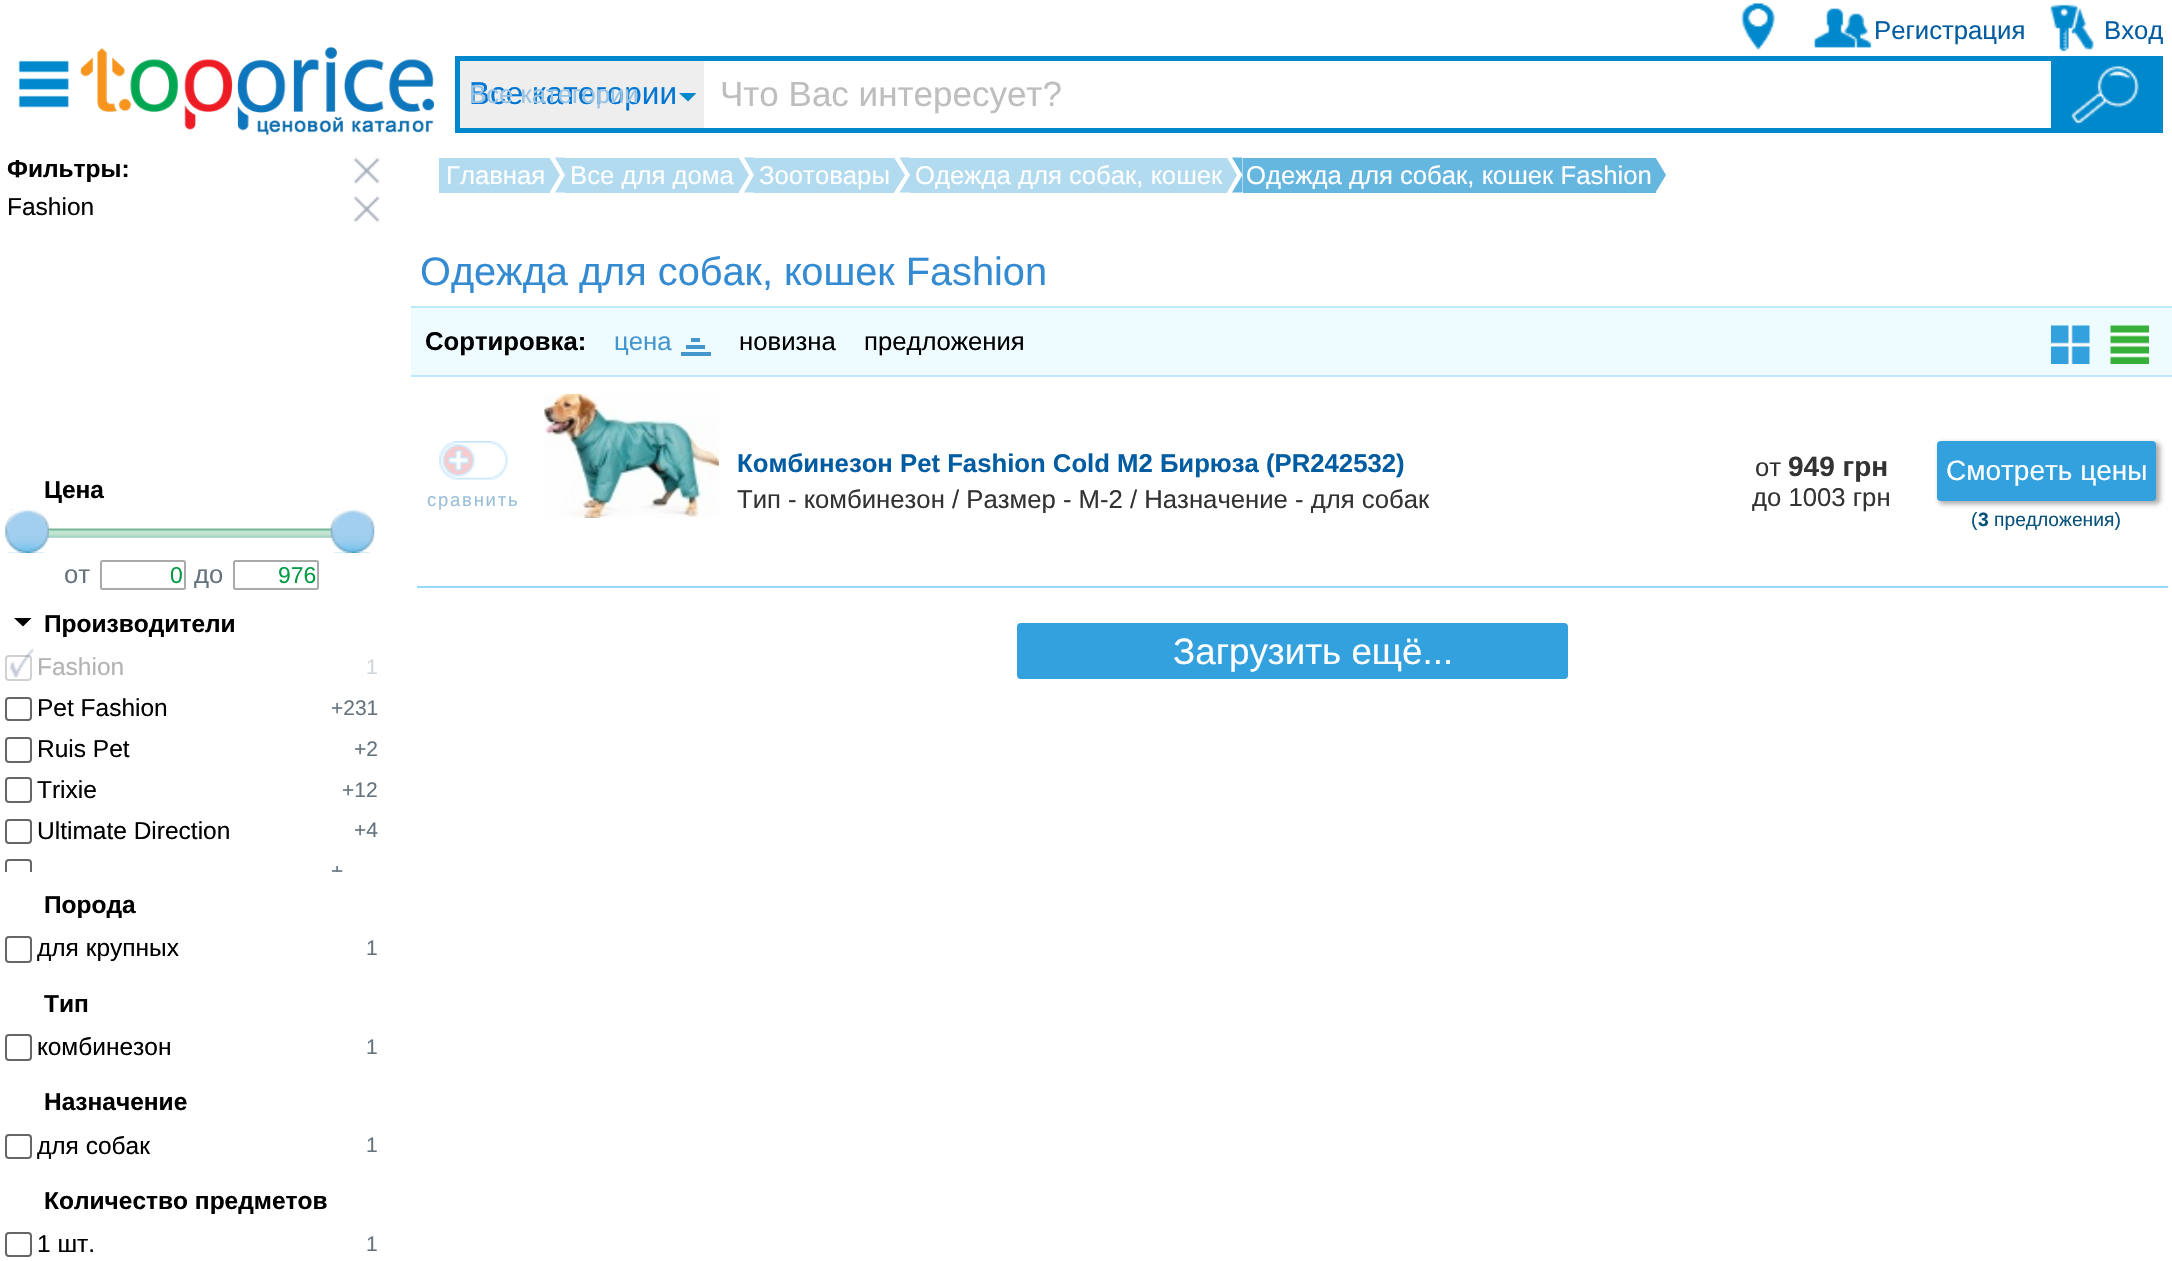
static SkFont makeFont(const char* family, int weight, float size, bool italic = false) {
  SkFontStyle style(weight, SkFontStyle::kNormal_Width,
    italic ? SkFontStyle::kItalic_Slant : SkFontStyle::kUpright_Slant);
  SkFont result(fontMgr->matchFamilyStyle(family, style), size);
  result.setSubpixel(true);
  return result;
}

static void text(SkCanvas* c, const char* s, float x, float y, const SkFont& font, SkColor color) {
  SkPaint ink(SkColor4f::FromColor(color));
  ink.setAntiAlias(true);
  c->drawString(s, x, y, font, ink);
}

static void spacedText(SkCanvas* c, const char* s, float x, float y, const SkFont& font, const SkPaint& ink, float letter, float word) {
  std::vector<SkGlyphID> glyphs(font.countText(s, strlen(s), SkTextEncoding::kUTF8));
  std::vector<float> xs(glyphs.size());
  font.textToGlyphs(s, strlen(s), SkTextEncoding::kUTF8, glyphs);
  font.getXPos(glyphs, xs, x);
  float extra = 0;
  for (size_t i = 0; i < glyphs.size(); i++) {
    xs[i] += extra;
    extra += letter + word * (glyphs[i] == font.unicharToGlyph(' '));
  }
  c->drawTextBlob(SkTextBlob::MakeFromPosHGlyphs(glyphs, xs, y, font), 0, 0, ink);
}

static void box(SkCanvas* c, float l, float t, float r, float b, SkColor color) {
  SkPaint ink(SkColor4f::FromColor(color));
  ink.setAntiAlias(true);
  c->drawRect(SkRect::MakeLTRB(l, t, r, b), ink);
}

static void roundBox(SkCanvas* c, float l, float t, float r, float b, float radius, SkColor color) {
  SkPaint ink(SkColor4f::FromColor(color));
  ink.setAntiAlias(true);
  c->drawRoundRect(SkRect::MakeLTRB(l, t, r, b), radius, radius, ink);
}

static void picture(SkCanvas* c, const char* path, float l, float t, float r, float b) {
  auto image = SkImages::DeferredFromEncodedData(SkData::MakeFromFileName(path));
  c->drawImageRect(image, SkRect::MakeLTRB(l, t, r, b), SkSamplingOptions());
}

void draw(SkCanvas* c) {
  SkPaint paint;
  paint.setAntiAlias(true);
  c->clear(0xffffffff);
  picture(c, "img_01.png", 1741, 3, 1775, 50);
  picture(c, "img_02.png", 1814, 8, 1872, 48);
  SkFont face1 = makeFont("Liberation Sans", 400, 25.7f);
  text(c, "Регистрация", 1874, 39, face1, 0xff015ca1);
  picture(c, "img_03.png", 2050, 4, 2094, 52);
  text(c, "Вход", 2104, 39, face1, 0xff015ca1);
  picture(c, "img_04.png", 18, 60, 69, 108);
  picture(c, "img_05.png", 80, 47, 434, 135);
  box(c, 2051, 61, 2158, 128, 0xff0088cc);
  paint.setStyle(SkPaint::kStroke_Style);
  paint.setStrokeWidth(5);
  paint.setColor(0xff0088cc);
  c->drawRect(SkRect::MakeLTRB(457.5f, 58.5f, 2160.5f, 130.5f), paint);
  box(c, 460, 61, 704, 128, 0xffeeeeee);
  SkFont face2 = makeFont("Liberation Sans", 400, 31.5f);
  text(c, "Все категории", 469, 104, face2, 0xff0176d2);
  paint.setStyle(SkPaint::kFill_Style);
  c->drawPath(SkPathBuilder().moveTo(679, 93).lineTo(696.5f, 93).lineTo(688, 101.5f).close().detach(), paint);
  SkFont face3 = makeFont("Liberation Sans", 400, 35);
  text(c, "Что Вас интересует?", 720, 106, face3, 0xffbebebe);
  picture(c, "img_06.png", 2071, 65, 2139, 125);
  text(c, "Все категории", 469, 103, face1, 0xff99c3e4);
  SkFont face4 = makeFont("Liberation Sans", 700, 24.5f);
  text(c, "Фильтры:", 7, 177, face4, 0xff000000);
  picture(c, "img_07.png", 353, 157, 380, 184);
  SkFont face5 = makeFont("Liberation Sans", 400, 24.5f);
  text(c, "Fashion", 7, 215, face5, 0xff000000);
  picture(c, "img_08.png", 353, 196, 380, 223);
  text(c, "Цена", 44, 498, face4, 0xff000000);
  box(c, 46, 537, 333, 538, 0xffc1ddf2);
  box(c, 46, 530, 333, 536, 0xffbfe4d1);
  paint.setStyle(SkPaint::kStroke_Style);
  paint.setStrokeWidth(1.8f);
  paint.setColor(0xff75b796);
  c->drawPath(SkPathBuilder().moveTo(31.5f, 530.5f).lineTo(34, 529.5f).lineTo(354.5f, 529.5f).lineTo(357, 530.5f).detach(), paint);
  paint.setColor(0xffacd4c0);
  c->drawPath(SkPathBuilder().moveTo(357, 530.5f).cubicTo(359, 532.5f, 357.5f, 536, 354.5f, 536.5f).lineTo(34, 536.5f).cubicTo(31, 536.5f, 29.5f, 532.5f, 31.5f, 530.5f).detach(), paint);
  picture(c, "img_09.png", 5, 509, 49, 553);
  picture(c, "img_10.png", 330, 509, 375, 553);
  text(c, "от", 64, 583, face1, 0xff65737e);
  paint.setStrokeWidth(2);
  paint.setColor(0xffaaaaaa);
  c->drawRoundRect(SkRect::MakeLTRB(101, 561, 185, 589), 1.5f, 1.5f, paint);
  SkFont face6 = makeFont("Liberation Sans", 400, 23);
  text(c, "0", 170, 583, face6, 0xff009944);
  text(c, "до", 194, 583, face1, 0xff65737e);
  c->drawRoundRect(SkRect::MakeLTRB(234, 561, 318, 589), 1.5f, 1.5f, paint);
  text(c, "976", 278, 583, face6, 0xff009944);
  paint.setStyle(SkPaint::kFill_Style);
  paint.setColor(0xff000000);
  c->drawPath(SkPathBuilder().moveTo(14, 618).lineTo(31.5f, 618).lineTo(23, 626.5f).close().detach(), paint);
  text(c, "Производители", 44, 632, face4, 0xff000000);
  paint.setStyle(SkPaint::kStroke_Style);
  paint.setColor(0xffd1d1d1);
  c->drawRoundRect(SkRect::MakeLTRB(6, 656, 31, 680), 3, 3, paint);
  picture(c, "img_11.png", 10, 648, 34, 678);
  text(c, "Fashion", 37, 675, face5, 0xffb3b3b3);
  SkFont face7 = makeFont("Liberation Sans", 400, 21);
  text(c, "1", 366, 674, face7, 0xffd1d5d8);
  paint.setColor(0xff666666);
  c->drawRoundRect(SkRect::MakeLTRB(6, 698, 31, 720), 3, 3, paint);
  text(c, "Pet Fashion", 37, 716, face5, 0xff000000);
  text(c, "+231", 331, 715, face7, 0xff65737e);
  c->drawRoundRect(SkRect::MakeLTRB(6, 738, 31, 762), 3, 3, paint);
  text(c, "Ruis Pet", 37, 757, face5, 0xff000000);
  text(c, "+2", 354, 756, face7, 0xff65737e);
  c->drawRoundRect(SkRect::MakeLTRB(6, 778, 31, 802), 3, 3, paint);
  text(c, "Trixie", 37, 798, face5, 0xff000000);
  text(c, "+12", 342, 797, face7, 0xff65737e);
  c->drawRoundRect(SkRect::MakeLTRB(6, 820, 31, 843), 3, 3, paint);
  text(c, "Ultimate Direction", 37, 839, face5, 0xff000000);
  text(c, "+4", 354, 837, face7, 0xff65737e);
  c->save();
  c->clipRect(SkRect::MakeLTRB(0, 648, 385, 872));
  c->drawRoundRect(SkRect::MakeLTRB(6, 860, 31, 885), 3, 3, paint);
  text(c, "+", 331, 878, face7, 0xff65737e);
  c->restore();
  text(c, "Порода", 44, 913, face4, 0xff000000);
  c->drawRoundRect(SkRect::MakeLTRB(6, 937, 31, 962), 3, 3, paint);
  text(c, "для крупных", 37, 956, face5, 0xff000000);
  text(c, "1", 366, 955, face7, 0xff65737e);
  text(c, "Тип", 44, 1012, face4, 0xff000000);
  c->drawRoundRect(SkRect::MakeLTRB(6, 1035, 31, 1060), 3, 3, paint);
  text(c, "комбинезон", 37, 1055, face5, 0xff000000);
  text(c, "1", 366, 1054, face7, 0xff65737e);
  text(c, "Назначение", 44, 1110, face4, 0xff000000);
  c->drawRoundRect(SkRect::MakeLTRB(6, 1135, 31, 1158), 3, 3, paint);
  text(c, "для собак", 37, 1154, face5, 0xff000000);
  text(c, "1", 366, 1152, face7, 0xff65737e);
  text(c, "Количество предметов", 44, 1209, face4, 0xff000000);
  c->drawRoundRect(SkRect::MakeLTRB(6, 1233, 31, 1256), 3, 3, paint);
  text(c, "1 шт.", 37, 1252, face5, 0xff000000);
  text(c, "1", 366, 1251, face7, 0xff65737e);
  box(c, 446, 158, 550, 193, 0xffb2dbef);
  box(c, 439, 158, 446, 193, 0xffb2dbef);
  text(c, "Главная", 446, 184, face1, 0xffffffff);
  paint.setStyle(SkPaint::kFill_Style);
  paint.setColor(0xffb2dbef);
  c->drawPath(SkPathBuilder().moveTo(549.5f, 192.5f).lineTo(549.5f, 157.5f).lineTo(560, 175).close().detach(), paint);
  box(c, 565, 158, 739, 193, 0xffb2dbef);
  c->drawPath(SkPathBuilder().moveTo(555, 157.5f).lineTo(565, 157.5f).lineTo(565, 175).close().moveTo(565, 192.5f).lineTo(555, 192.5f).lineTo(565, 175).close().detach(), paint);
  text(c, "Все для дома", 570, 184, face1, 0xffffffff);
  c->drawPath(SkPathBuilder().moveTo(738.5f, 192.5f).lineTo(738.5f, 157.5f).lineTo(749, 175).close().detach(), paint);
  box(c, 754, 158, 894, 193, 0xffb2dbef);
  c->drawPath(SkPathBuilder().moveTo(744, 157.5f).lineTo(754, 157.5f).lineTo(754, 175).close().moveTo(754, 192.5f).lineTo(744, 192.5f).lineTo(754, 175).close().detach(), paint);
  text(c, "Зоотовары", 759, 184, face1, 0xffffffff);
  c->drawPath(SkPathBuilder().moveTo(894, 192.5f).lineTo(894, 157.5f).lineTo(905, 175).close().detach(), paint);
  box(c, 910, 158, 1227, 193, 0xffb2dbef);
  c->drawPath(SkPathBuilder().moveTo(899.5f, 157.5f).lineTo(910, 157.5f).lineTo(910, 175).close().moveTo(910, 192.5f).lineTo(899.5f, 192.5f).lineTo(910, 175).close().detach(), paint);
  text(c, "Одежда для собак, кошек", 915, 184, face1, 0xffffffff);
  c->drawPath(SkPathBuilder().moveTo(1227, 192.5f).lineTo(1227, 157.5f).lineTo(1237, 175).close().detach(), paint);
  box(c, 1243, 158, 1656, 193, 0xff66b7e0);
  paint.setColor(0xff66b7e0);
  c->drawPath(SkPathBuilder().moveTo(1232, 157.5f).lineTo(1242.5f, 157.5f).lineTo(1242.5f, 175).close().moveTo(1242.5f, 192.5f).lineTo(1232, 192.5f).lineTo(1242.5f, 175).close().detach(), paint);
  text(c, "Одежда для собак, кошек Fashion", 1246, 184, face1, 0xffffffff);
  c->drawPath(SkPathBuilder().moveTo(1655.5f, 192.5f).lineTo(1655.5f, 157.5f).lineTo(1666, 175).close().detach(), paint);
  SkFont face8 = makeFont("Liberation Sans", 400, 39.7f);
  text(c, "Одежда для собак, кошек Fashion", 420, 285, face8, 0xff358bd1);
  box(c, 411, 308, 2172, 375, 0xffeefcff);
  box(c, 411, 306, 2172, 308, 0xffbeeaff);
  box(c, 411, 375, 2172, 377, 0xffbeeaff);
  SkFont face9 = makeFont("Liberation Sans", 700, 25.7f);
  text(c, "Сортировка:", 425, 350, face9, 0xff000000);
  text(c, "цена", 614, 350, face1, 0xff4696ce);
  box(c, 686, 345, 705, 349, 0xff4696ce);
  box(c, 691, 338, 700, 342, 0xff4696ce);
  box(c, 681, 352, 711, 356, 0xff4696ce);
  text(c, "новизна", 739, 350, face1, 0xff000000);
  text(c, "предложения", 864, 350, face1, 0xff000000);
  picture(c, "img_12.png", 2051, 325, 2090, 364);
  picture(c, "img_13.png", 2110, 325, 2149, 364);
  box(c, 417, 586, 2168, 588, 0xff94d9f9);
  picture(c, "img_14.png", 439, 441, 508, 480);
  SkFont face10 = makeFont("Liberation Sans", 400, 18.5f);
  paint.setColor(0xff99bed9);
  spacedText(c, "сравнить", 427, 506, face10, paint, 1.75f, 0);
  picture(c, "img_15.png", 544, 393, 720, 518);
  text(c, "Комбинезон Pet Fashion Cold M2 Бирюза (PR242532)", 737, 472, face9, 0xff015ca1);
  c->save();
  c->clipRect(SkRect::MakeLTRB(737, 450, 1706, 513));
  text(c, "Тип - комбинезон / Размер - M-2 / Назначение - для собак", 737, 508, face1, 0xff333333);
  c->restore();
  text(c, "от", 1755, 476, face1, 0xff333333);
  SkFont face11 = makeFont("Liberation Sans", 700, 28);
  text(c, "949 грн", 1788, 476, face11, 0xff333333);
  text(c, "до 1003 грн", 1752, 506, face1, 0xff333333);
  paint.setColor(0xffaaaaaa);
  paint.setMaskFilter(SkMaskFilter::MakeBlur(kNormal_SkBlurStyle, 2.5f));
  c->drawRoundRect(SkRect::MakeLTRB(1939, 443, 2160, 504), 4, 4, paint);
  paint.setMaskFilter(nullptr);
  roundBox(c, 1937, 441, 2156, 501, 4, 0xff32a1dd);
  SkFont face12 = makeFont("Liberation Sans", 400, 28);
  text(c, "Смотреть цены", 1946, 480, face12, 0xffffffff);
  SkFont face13 = makeFont("Liberation Sans", 400, 19.25f);
  text(c, "(", 1971, 526, face13, 0xff09527a);
  SkFont face14 = makeFont("Liberation Sans", 700, 19.25f);
  text(c, "3", 1978, 526, face14, 0xff09527a);
  text(c, "предложения)", 1994, 526, face13, 0xff09527a);
  roundBox(c, 1017, 623, 1568, 679, 4, 0xff32a1dd);
  SkFont face15 = makeFont("Liberation Sans", 400, 36.75f);
  text(c, "Загрузить ещё...", 1173, 664, face15, 0xffffffff);
}
